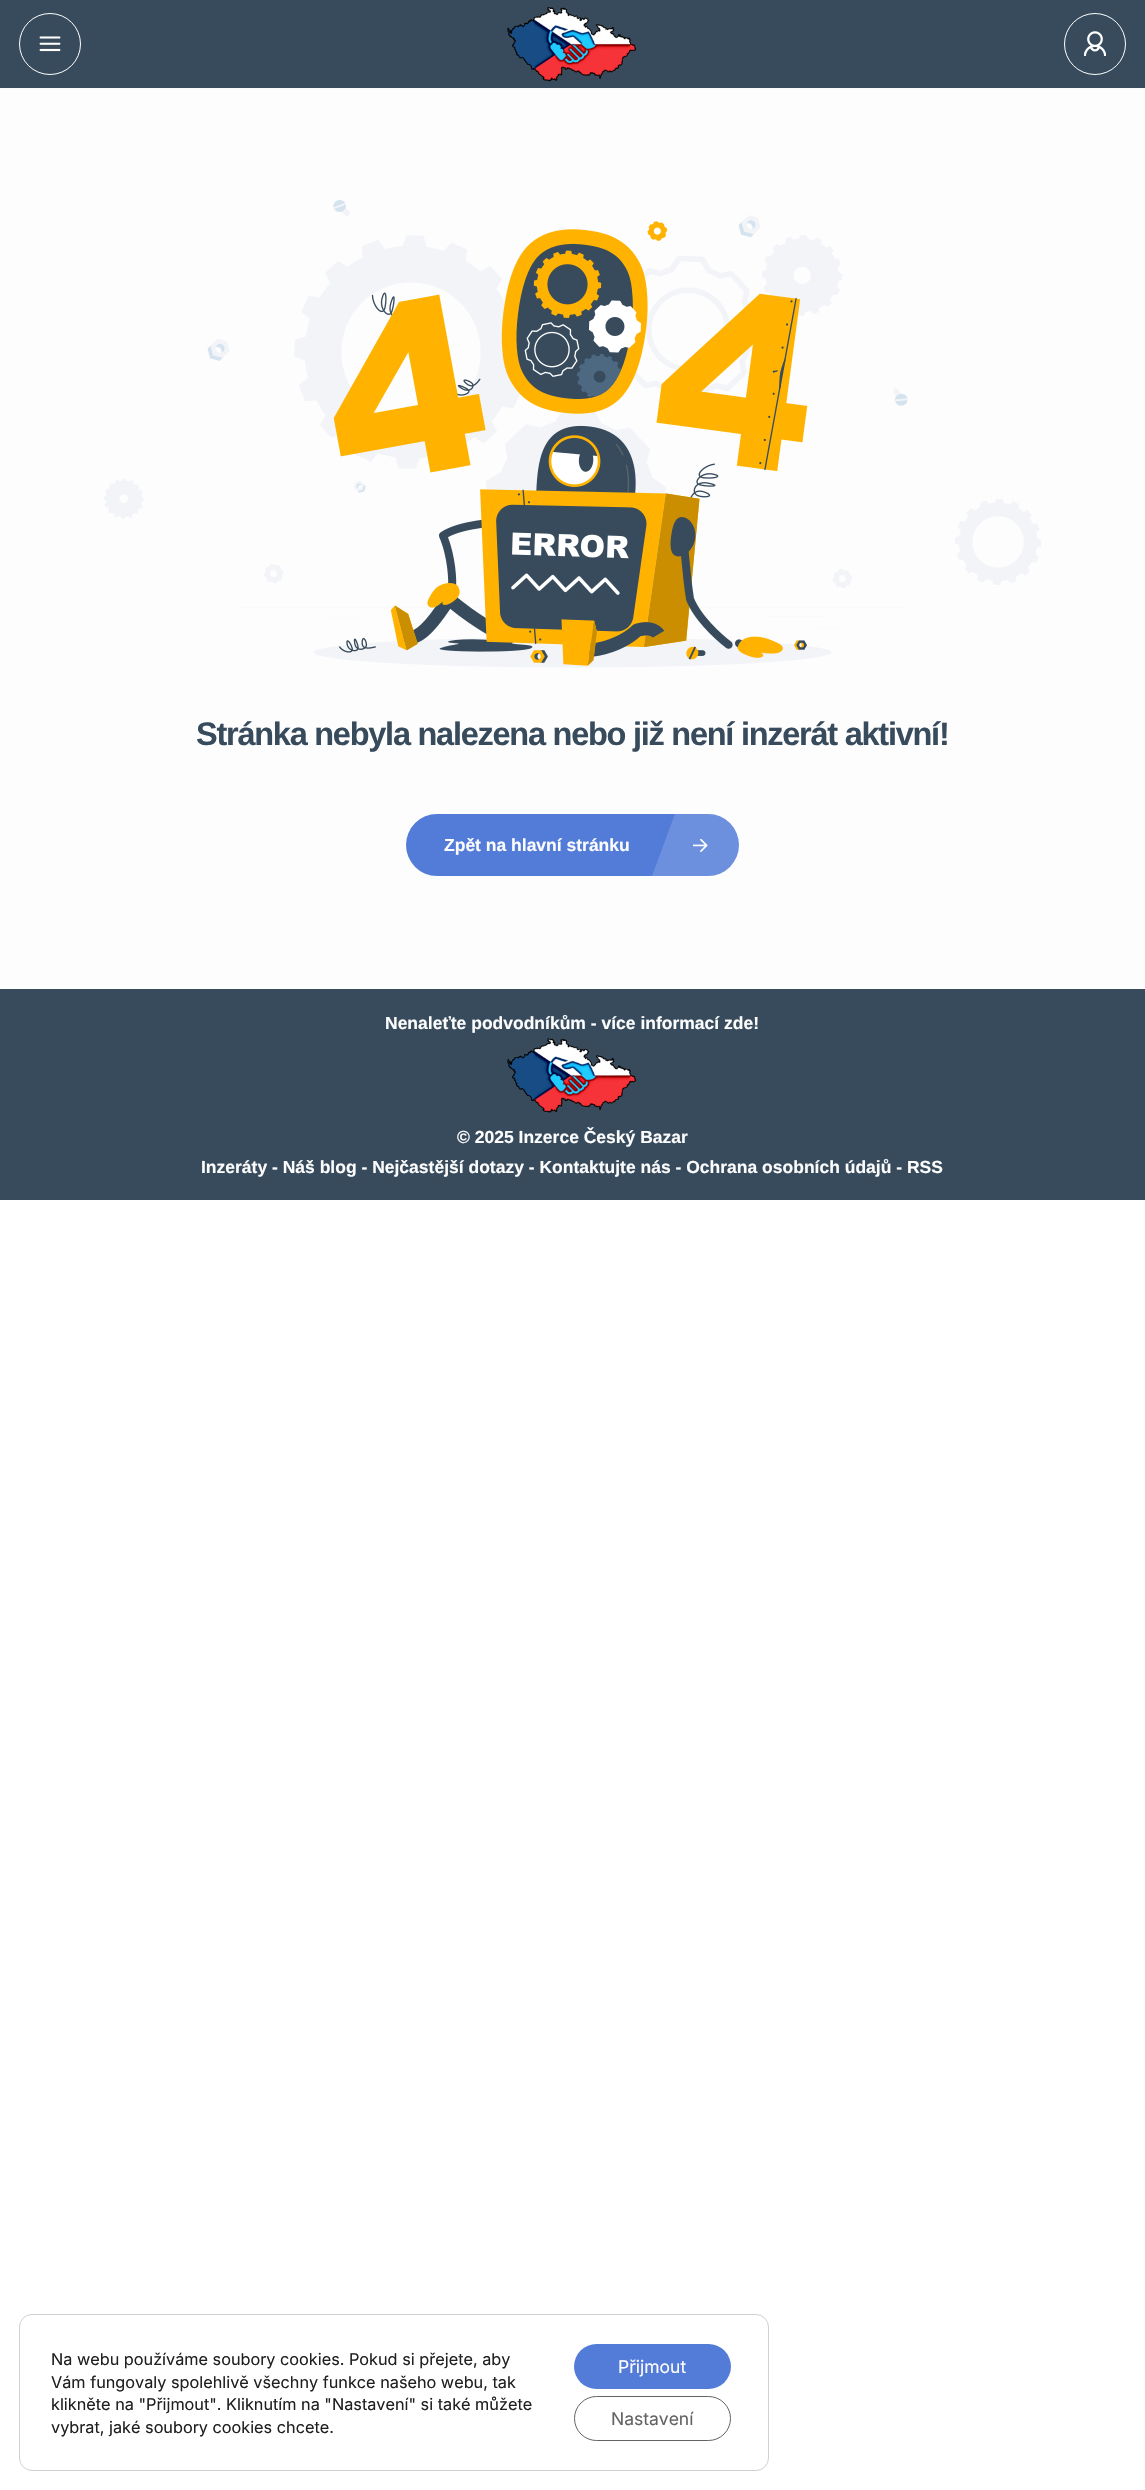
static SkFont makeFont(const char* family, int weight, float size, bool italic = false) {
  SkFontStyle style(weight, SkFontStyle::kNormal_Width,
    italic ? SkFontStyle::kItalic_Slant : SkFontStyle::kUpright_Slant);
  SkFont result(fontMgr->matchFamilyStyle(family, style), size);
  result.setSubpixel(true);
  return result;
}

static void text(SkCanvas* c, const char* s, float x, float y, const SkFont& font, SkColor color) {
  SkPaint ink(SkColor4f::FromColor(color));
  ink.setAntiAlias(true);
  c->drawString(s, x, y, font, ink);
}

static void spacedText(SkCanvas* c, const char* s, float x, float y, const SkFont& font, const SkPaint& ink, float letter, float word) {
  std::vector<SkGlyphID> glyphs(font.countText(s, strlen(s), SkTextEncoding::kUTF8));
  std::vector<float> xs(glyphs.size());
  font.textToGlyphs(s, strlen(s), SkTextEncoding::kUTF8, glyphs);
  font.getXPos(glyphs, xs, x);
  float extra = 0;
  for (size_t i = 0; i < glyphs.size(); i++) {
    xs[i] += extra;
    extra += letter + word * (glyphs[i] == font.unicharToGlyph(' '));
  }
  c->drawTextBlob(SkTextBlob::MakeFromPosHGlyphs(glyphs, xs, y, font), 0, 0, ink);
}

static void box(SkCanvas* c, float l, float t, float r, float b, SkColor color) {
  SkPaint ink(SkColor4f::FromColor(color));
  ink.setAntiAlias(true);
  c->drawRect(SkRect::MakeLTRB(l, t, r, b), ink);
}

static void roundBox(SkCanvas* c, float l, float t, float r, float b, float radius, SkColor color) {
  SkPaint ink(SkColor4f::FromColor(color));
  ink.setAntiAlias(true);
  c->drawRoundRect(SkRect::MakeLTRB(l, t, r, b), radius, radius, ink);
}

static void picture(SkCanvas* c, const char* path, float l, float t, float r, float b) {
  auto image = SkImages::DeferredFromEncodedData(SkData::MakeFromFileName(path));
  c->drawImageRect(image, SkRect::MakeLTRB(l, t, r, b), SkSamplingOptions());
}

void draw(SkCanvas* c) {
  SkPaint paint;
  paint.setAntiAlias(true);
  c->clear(0xffffffff);
  box(c, 0, 0, 1145, 1200, 0xff374b5c);
  paint.setStyle(SkPaint::kStroke_Style);
  paint.setStrokeWidth(1);
  paint.setColor(0xffffffff);
  c->drawCircle(50, 44, 30.5f, paint);
  picture(c, "img_01.png", 39, 36, 61, 52);
  picture(c, "img_02.png", 507, 7, 637, 82);
  c->drawCircle(1095, 44, 30.5f, paint);
  picture(c, "img_03.png", 1084, 31, 1106, 56);
  box(c, 0, 88, 1145, 89, 0xfffafafb);
  box(c, 0, 89, 1145, 989, 0xfffdfdfe);
  picture(c, "img_04.png", 104, 200, 1041, 668);
  SkFont face1 = makeFont("Liberation Sans", 700, 32.5f);
  paint.setStyle(SkPaint::kFill_Style);
  paint.setColor(0xff374b5c);
  spacedText(c, "Stránka nebyla nalezena nebo již není inzerát aktivní!", 196, 745, face1, paint, -1.25f, 0);
  roundBox(c, 406, 814, 739, 876, 31, 0xff537cd9);
  SkFont face2 = makeFont("Liberation Sans", 700, 17.5f);
  text(c, "Zpět na hlavní stránku", 444, 851, face2, 0xfffdfdfe);
  picture(c, "img_05.png", 693, 839, 708, 852);
  paint.setColor(0x26fdfdfe);
  c->drawPath(SkPathBuilder().moveTo(652, 876).lineTo(675, 814).lineTo(708, 814).cubicTo(725, 814, 739, 828, 739, 845).cubicTo(739, 862, 725, 876, 708, 876).close().detach(), paint);
  text(c, "Nenaleťte podvodníkům - více informací zde!", 385, 1029, face2, 0xfffdfdfe);
  picture(c, "img_06.png", 507, 1038, 637, 1113);
  text(c, "© 2025 Inzerce Český Bazar", 457, 1143, face2, 0xfffdfdfe);
  text(c, "Inzeráty - Náš blog - Nejčastější dotazy - Kontaktujte nás - Ochrana osobních údajů - RSS", 201, 1173, face2, 0xfffdfdfe);
  paint.setStyle(SkPaint::kStroke_Style);
  paint.setColor(0xffd3ced2);
  c->drawRoundRect(SkRect::MakeLTRB(19.5f, 2314.5f, 768.5f, 2470.5f), 12.5f, 12.5f, paint);
  SkFont face3 = makeFont("Inter", 400, 16.25f);
  text(c, "Na webu používáme soubory cookies. Pokud si přejete, aby", 51, 2365, face3, 0xff202020);
  text(c, "Vám fungovaly spolehlivě všechny funkce našeho webu, tak", 51, 2388, face3, 0xff202020);
  text(c, "klikněte na \"Přijmout\". Kliknutím na \"Nastavení\" si také můžete", 51, 2410, face3, 0xff202020);
  text(c, "vybrat, jaké soubory cookies chcete.", 51, 2433, face3, 0xff202020);
  roundBox(c, 574, 2344, 731, 2389, 22.5f, 0xff537cd9);
  SkFont face4 = makeFont("Inter", 400, 17.5f);
  text(c, "Přijmout", 618, 2373, face4, 0xfffdfdfe);
  paint.setColor(0xff636363);
  c->drawRoundRect(SkRect::MakeLTRB(574.5f, 2396.5f, 730.5f, 2440.5f), 22, 22, paint);
  text(c, "Nastavení", 611, 2425, face4, 0xff636363);
}
